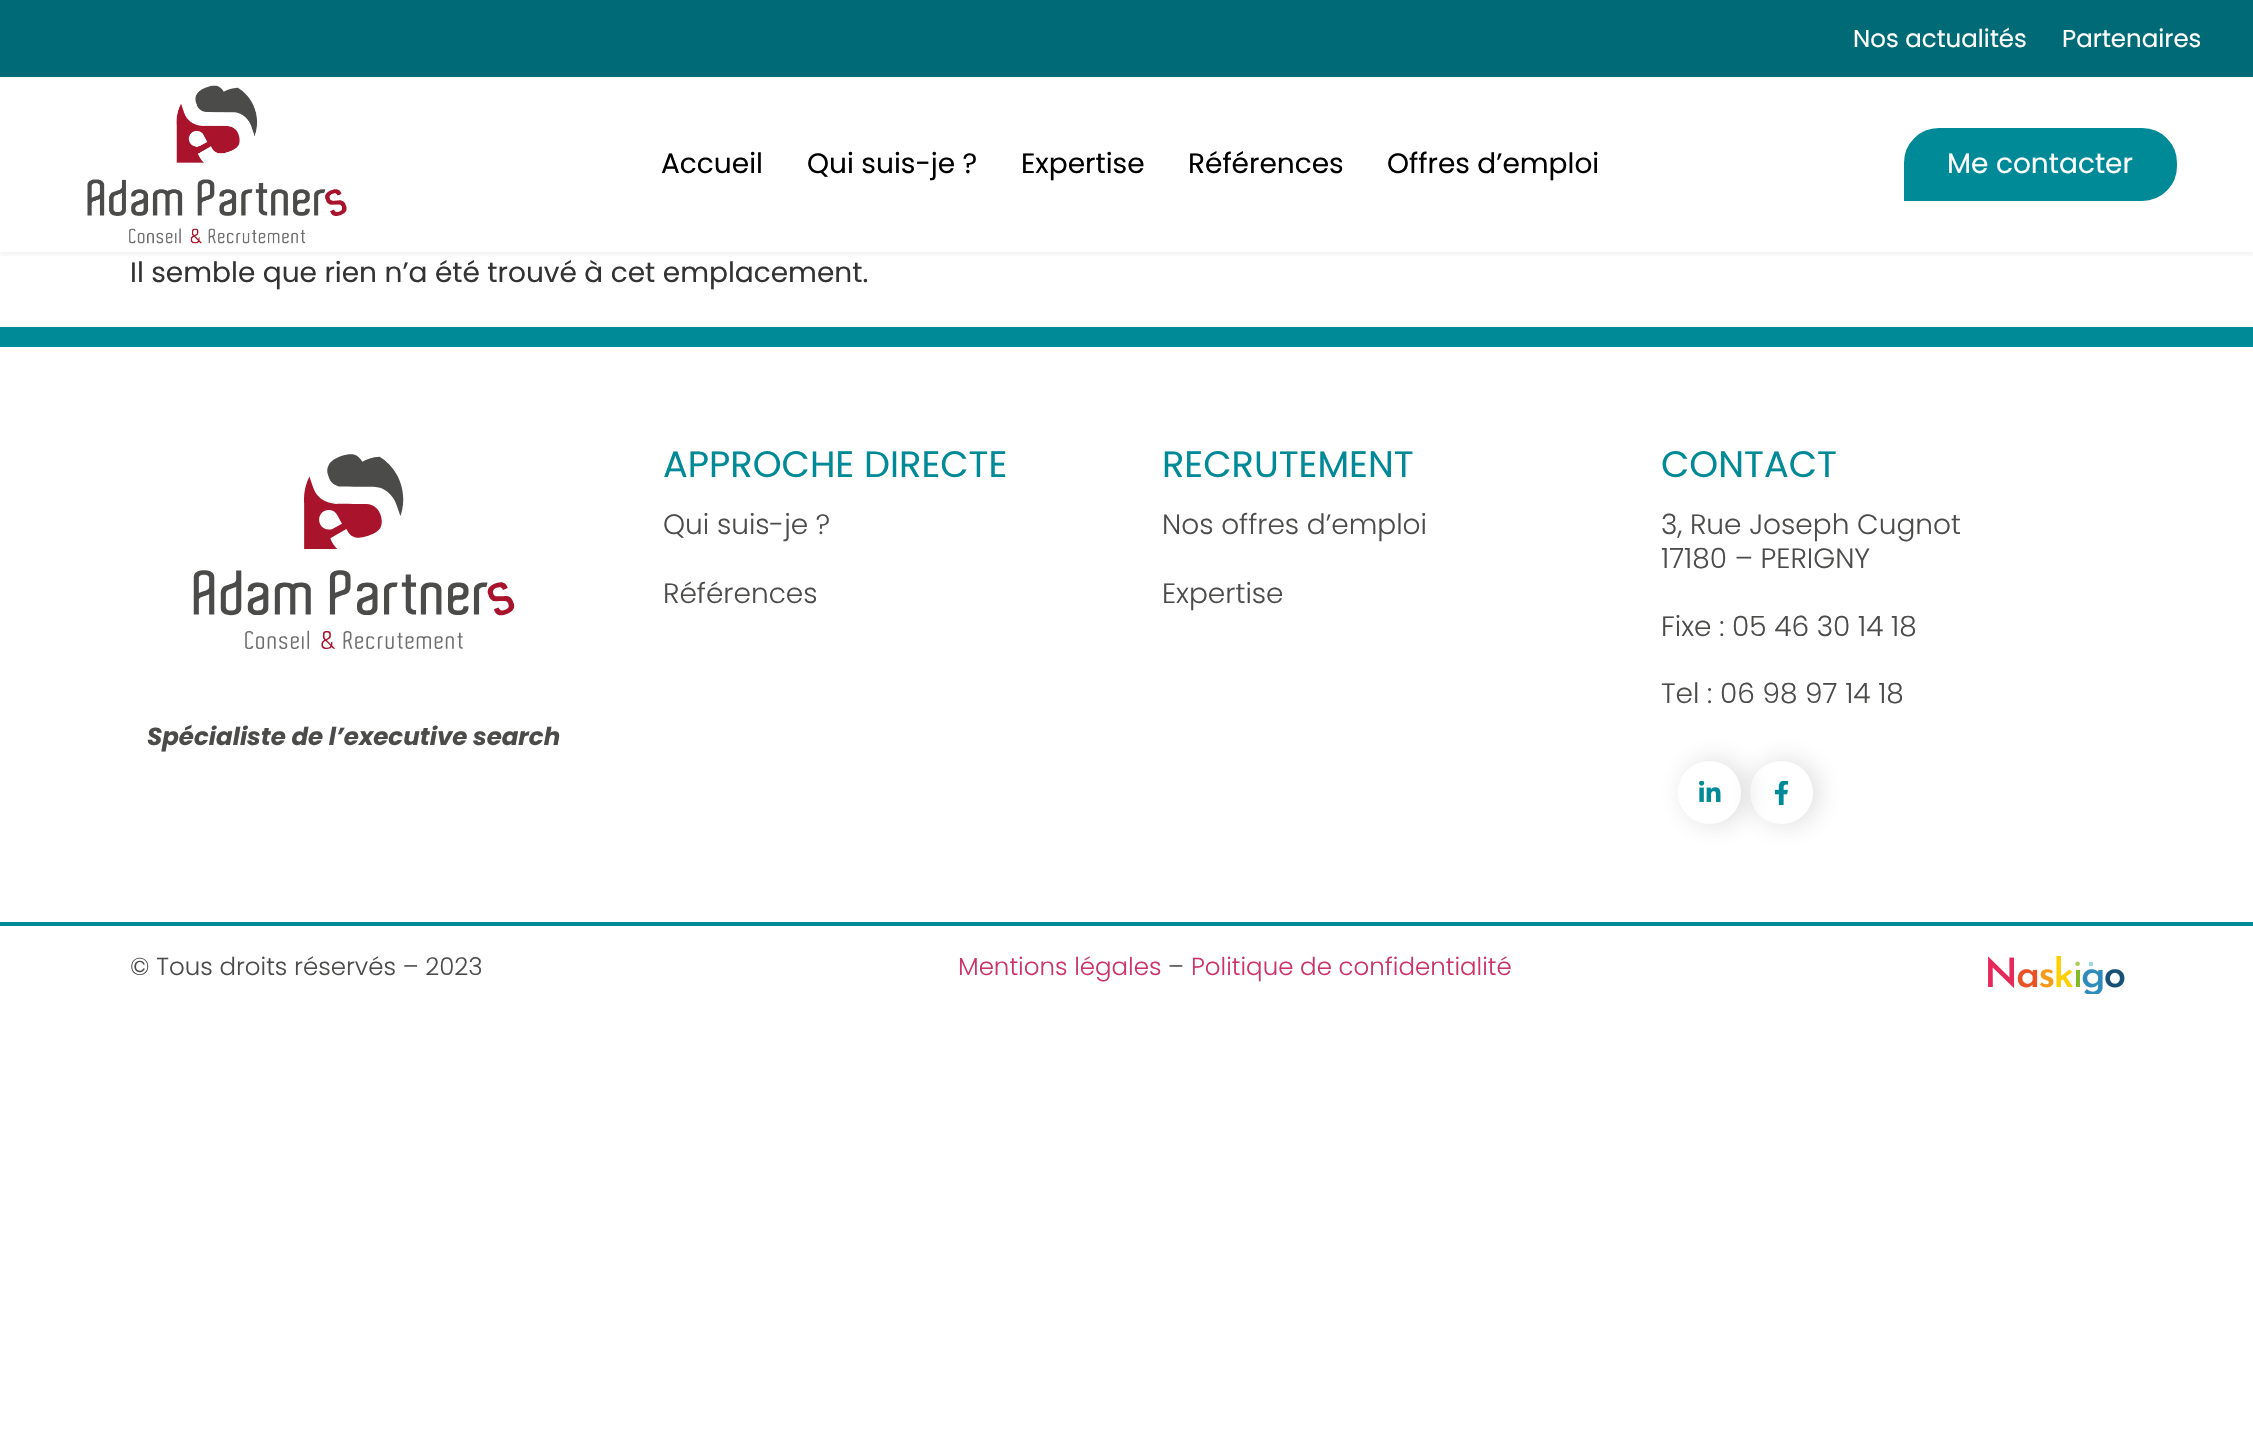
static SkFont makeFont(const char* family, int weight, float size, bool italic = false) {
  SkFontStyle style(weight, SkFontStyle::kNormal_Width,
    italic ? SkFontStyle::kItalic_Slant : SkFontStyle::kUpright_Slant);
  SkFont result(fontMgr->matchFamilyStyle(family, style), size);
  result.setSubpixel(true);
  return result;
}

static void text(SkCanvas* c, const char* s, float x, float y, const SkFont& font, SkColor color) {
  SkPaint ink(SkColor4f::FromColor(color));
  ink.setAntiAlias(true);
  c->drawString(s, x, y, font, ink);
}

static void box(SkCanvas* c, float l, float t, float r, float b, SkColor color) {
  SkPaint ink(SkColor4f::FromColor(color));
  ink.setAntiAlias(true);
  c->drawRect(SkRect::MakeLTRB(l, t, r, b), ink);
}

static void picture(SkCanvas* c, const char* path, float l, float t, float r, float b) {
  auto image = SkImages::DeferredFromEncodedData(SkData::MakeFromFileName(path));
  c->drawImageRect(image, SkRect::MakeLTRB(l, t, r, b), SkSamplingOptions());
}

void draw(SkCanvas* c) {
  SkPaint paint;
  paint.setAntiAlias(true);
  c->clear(0xffffffff);
  box(c, 0, 0, 2253, 77, 0xff006a77);
  SkFont face1 = makeFont("Poppins", 400, 24.5f);
  text(c, "Nos actualités", 1853, 47, face1, 0xffffffff);
  text(c, "Partenaires", 2062, 47, face1, 0xffffffff);
  c->save();
  c->clipRect(SkRect::MakeLTRB(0, 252, 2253, 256));
  paint.setColor(0x0d212121);
  paint.setMaskFilter(SkMaskFilter::MakeBlur(kNormal_SkBlurStyle, 2));
  c->drawRect(SkRect::MakeLTRB(0, 81, 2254, 256), paint);
  paint.setMaskFilter(nullptr);
  c->restore();
  picture(c, "img_01.png", 87, 85, 347, 244);
  SkFont face2 = makeFont("Poppins", 400, 28);
  text(c, "Accueil", 661, 173, face2, 0xff000000);
  text(c, "Qui suis-je ?", 807, 173, face2, 0xff000000);
  text(c, "Expertise", 1021, 173, face2, 0xff000000);
  text(c, "Références", 1188, 173, face2, 0xff000000);
  text(c, "Offres d’emploi", 1387, 173, face2, 0xff000000);
  paint.setColor(0xff008997);
  c->drawPath(SkPathBuilder().moveTo(1939, 129).lineTo(2142, 129).cubicTo(2161, 129, 2176, 144, 2176, 163).lineTo(2176, 166).cubicTo(2176, 185, 2161, 200, 2142, 200).lineTo(1905, 200).lineTo(1905, 163).cubicTo(1905, 144, 1920, 129, 1939, 129).close().detach(), paint);
  paint.setStyle(SkPaint::kStroke_Style);
  paint.setStrokeWidth(2);
  c->drawPath(SkPathBuilder().moveTo(1939, 129).lineTo(2142, 129).cubicTo(2161, 129, 2176, 144, 2176, 163).lineTo(2176, 166).cubicTo(2176, 185, 2161, 200, 2142, 200).lineTo(1905, 200).lineTo(1905, 163).cubicTo(1905, 144, 1920, 129, 1939, 129).close().detach(), paint);
  text(c, "Me contacter", 1947, 173, face2, 0xffffffff);
  text(c, "Il semble que rien n’a été trouvé à cet emplacement.", 130, 282, face2, 0xff333333);
  box(c, 0, 327, 2253, 347, 0xff008997);
  SkFont face3 = makeFont("Poppins", 400, 36.75f);
  text(c, "APPROCHE DIRECTE", 663, 477, face3, 0xff008997);
  SkFont face4 = makeFont("Poppins", 300, 28);
  text(c, "Qui suis-je ?", 663, 534, face4, 0xff4b4b4a);
  text(c, "Références", 663, 603, face4, 0xff4b4b4a);
  text(c, "RECRUTEMENT", 1162, 477, face3, 0xff008997);
  text(c, "Nos offres d’emploi", 1162, 534, face4, 0xff4b4b4a);
  text(c, "Expertise", 1162, 603, face4, 0xff4b4b4a);
  text(c, "CONTACT", 1661, 477, face3, 0xff008997);
  text(c, "3, Rue Joseph Cugnot", 1661, 534, face4, 0xff4b4b4a);
  text(c, "17180 – PERIGNY", 1661, 568, face4, 0xff4b4b4a);
  text(c, "Fixe : 05 46 30 14 18", 1661, 636, face4, 0xff4b4b4a);
  text(c, "Tel : 06 98 97 14 18", 1661, 703, face4, 0xff4b4b4a);
  c->save();
  c->clipPath(SkPathBuilder(SkPathFillType::kEvenOdd).moveTo(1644, 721).lineTo(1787, 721).lineTo(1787, 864).lineTo(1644, 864).close().moveTo(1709.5f, 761).cubicTo(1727, 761, 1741, 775, 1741, 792.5f).cubicTo(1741, 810, 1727, 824, 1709.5f, 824).cubicTo(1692, 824, 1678, 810, 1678, 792.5f).cubicTo(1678, 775, 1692, 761, 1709.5f, 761).close().detach(), true);
  paint.setStyle(SkPaint::kFill_Style);
  paint.setColor(0x334d4d4d);
  paint.setMaskFilter(SkMaskFilter::MakeBlur(kNormal_SkBlurStyle, 13));
  c->drawRoundRect(SkRect::MakeLTRB(1684, 761, 1747, 824), 31.5f, 31.5f, paint);
  paint.setMaskFilter(nullptr);
  c->restore();
  picture(c, "img_02.png", 1699, 781, 1721, 802);
  c->save();
  c->clipPath(SkPathBuilder(SkPathFillType::kEvenOdd).moveTo(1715, 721).lineTo(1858, 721).lineTo(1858, 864).lineTo(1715, 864).close().moveTo(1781.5f, 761).cubicTo(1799, 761, 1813, 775, 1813, 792.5f).cubicTo(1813, 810, 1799, 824, 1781.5f, 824).cubicTo(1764, 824, 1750, 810, 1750, 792.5f).cubicTo(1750, 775, 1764, 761, 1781.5f, 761).close().detach(), true);
  paint.setMaskFilter(SkMaskFilter::MakeBlur(kNormal_SkBlurStyle, 13));
  c->drawRoundRect(SkRect::MakeLTRB(1755, 761, 1818, 824), 31.5f, 31.5f, paint);
  paint.setMaskFilter(nullptr);
  c->restore();
  picture(c, "img_03.png", 1774, 781, 1789, 805);
  picture(c, "img_04.png", 193, 454, 515, 649);
  SkFont face5 = makeFont("Poppins", 700, 24.5f, true);
  text(c, "Spécialiste de l’executive search", 147, 745, face5, 0xff4b4b4a);
  box(c, 0, 922, 2253, 926, 0xff008997);
  SkFont face6 = makeFont("Poppins", 300, 24.5f);
  text(c, "© Tous droits réservés – 2023", 130, 975, face6, 0xff4b4b4a);
  text(c, "Mentions légales", 958, 975, face6, 0xffcc3366);
  text(c, "–", 1168, 975, face6, 0xff4b4b4a);
  text(c, "Politique de confidentialité", 1191, 975, face6, 0xffcc3366);
  picture(c, "img_05.png", 1988, 956, 2125, 994);
}
